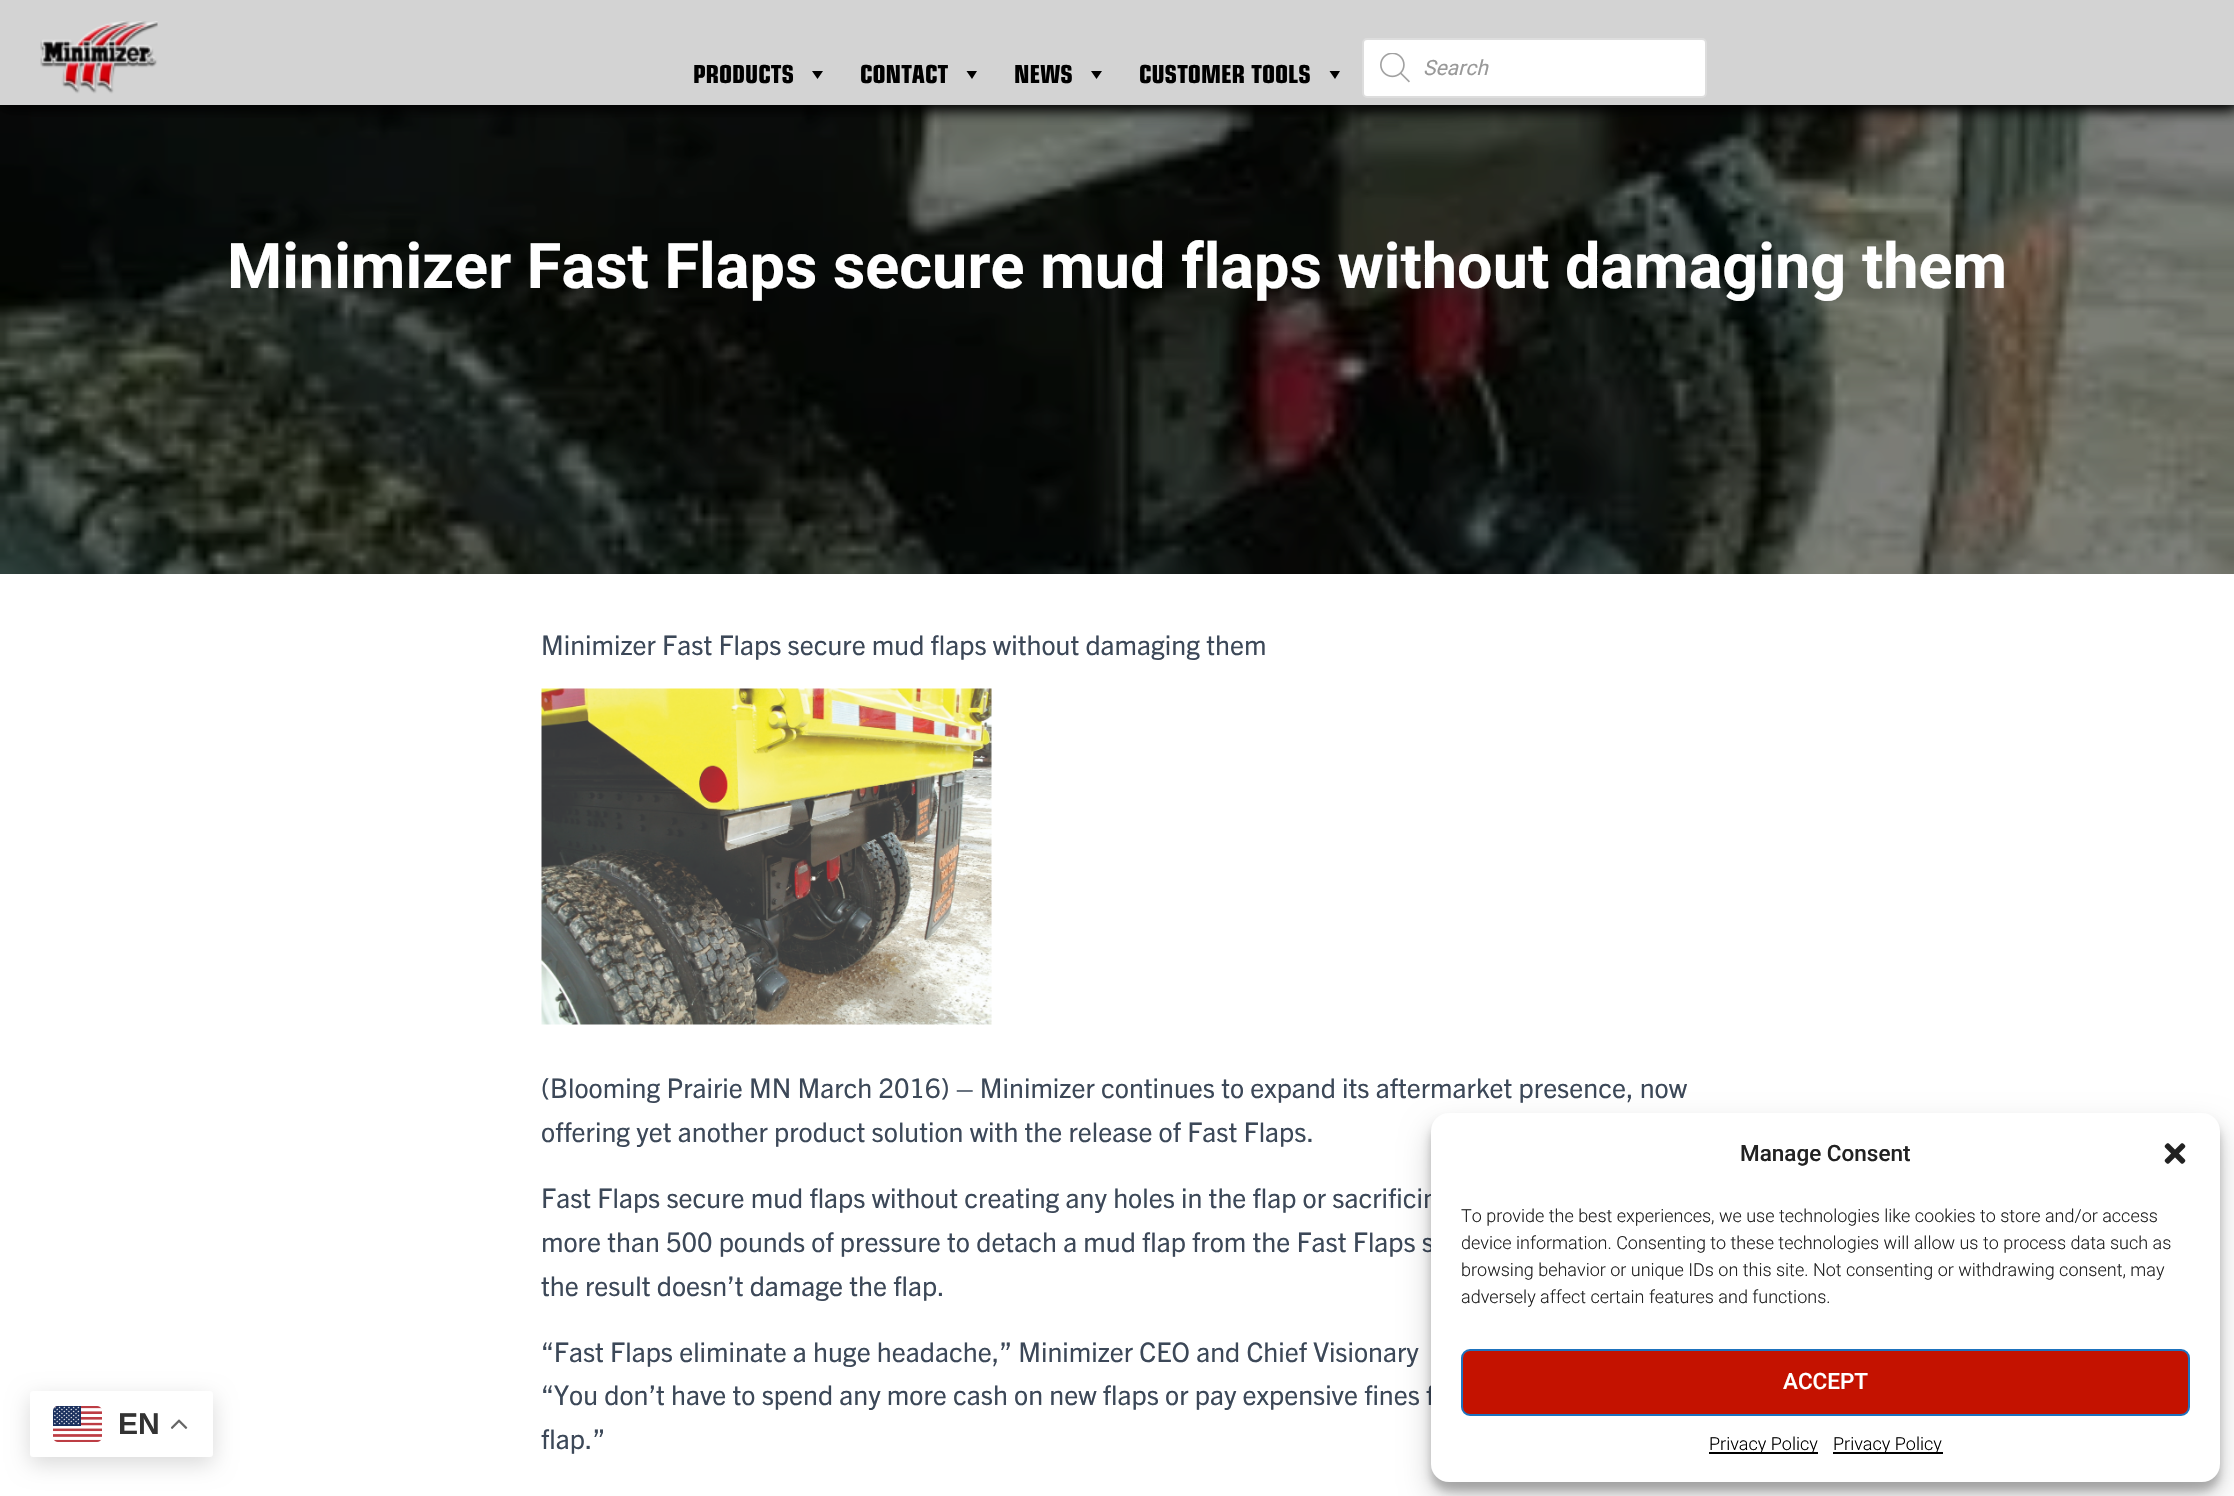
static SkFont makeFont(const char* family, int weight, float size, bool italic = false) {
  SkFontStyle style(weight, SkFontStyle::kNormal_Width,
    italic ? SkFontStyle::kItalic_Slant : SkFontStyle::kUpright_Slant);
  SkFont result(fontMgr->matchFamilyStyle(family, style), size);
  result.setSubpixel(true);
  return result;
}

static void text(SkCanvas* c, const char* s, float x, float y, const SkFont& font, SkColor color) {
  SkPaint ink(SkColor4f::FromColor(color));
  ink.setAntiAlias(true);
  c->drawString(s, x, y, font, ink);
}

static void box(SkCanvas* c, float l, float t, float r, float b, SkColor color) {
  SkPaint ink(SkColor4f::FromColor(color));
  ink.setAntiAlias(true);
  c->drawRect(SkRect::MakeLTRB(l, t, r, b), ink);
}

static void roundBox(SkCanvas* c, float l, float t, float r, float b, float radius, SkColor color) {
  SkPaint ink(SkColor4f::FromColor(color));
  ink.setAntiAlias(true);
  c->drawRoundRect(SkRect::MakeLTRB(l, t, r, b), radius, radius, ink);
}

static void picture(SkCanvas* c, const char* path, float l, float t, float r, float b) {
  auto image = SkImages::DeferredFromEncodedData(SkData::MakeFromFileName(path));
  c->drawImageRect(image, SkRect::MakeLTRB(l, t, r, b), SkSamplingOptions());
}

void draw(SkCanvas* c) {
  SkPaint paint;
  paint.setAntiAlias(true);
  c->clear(0xffffffff);
  picture(c, "img_03.png", 0, 105, 2234, 574);
  paint.setColor(0xff000000);
  paint.setMaskFilter(SkMaskFilter::MakeBlur(kNormal_SkBlurStyle, 7.5f));
  c->drawRect(SkRect::MakeLTRB(2, 2, 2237, 107), paint);
  paint.setMaskFilter(nullptr);
  paint.setMaskFilter(SkMaskFilter::MakeBlur(kNormal_SkBlurStyle, 7.5f));
  c->drawRect(SkRect::MakeLTRB(2, 2, 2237, 107), paint);
  paint.setMaskFilter(nullptr);
  box(c, 0, 0, 2234, 105, 0xffd3d3d3);
  picture(c, "img_01.png", 40, 21, 158, 94);
  SkFont face1 = makeFont("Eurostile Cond", 900, 27);
  text(c, "PRODUCTS", 693, 83, face1, 0xff000000);
  c->drawPath(SkPathBuilder().moveTo(823, 71).lineTo(817.5f, 79).lineTo(812, 71).close().detach(), paint);
  text(c, "CONTACT", 860, 83, face1, 0xff000000);
  c->drawPath(SkPathBuilder().moveTo(977, 71).lineTo(972, 79).lineTo(966.5f, 71).close().detach(), paint);
  text(c, "NEWS", 1014, 83, face1, 0xff000000);
  c->drawPath(SkPathBuilder().moveTo(1102, 71).lineTo(1096.5f, 79).lineTo(1091, 71).close().detach(), paint);
  text(c, "CUSTOMER TOOLS", 1139, 83, face1, 0xff000000);
  c->drawPath(SkPathBuilder().moveTo(1340, 71).lineTo(1335, 79).lineTo(1329.5f, 71).close().detach(), paint);
  paint.setColor(0xffffffff);
  c->drawRoundRect(SkRect::MakeLTRB(1363, 39, 1706, 97), 4, 4, paint);
  paint.setStyle(SkPaint::kStroke_Style);
  paint.setStrokeWidth(2);
  paint.setColor(0xffdddddd);
  c->drawRoundRect(SkRect::MakeLTRB(1363, 39, 1706, 97), 4, 4, paint);
  picture(c, "img_02.png", 1380, 53, 1410, 83);
  SkFont face2 = makeFont("Roboto", 400, 21, true);
  text(c, "Search", 1423, 75, face2, 0xff999999);
  SkFont face3 = makeFont("Roboto", 700, 63);
  text(c, "Minimizer Fast Flaps secure mud flaps without damaging them", 227, 288, face3, 0xffffffff);
  SkFont face4 = makeFont("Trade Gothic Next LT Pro", 400, 27);
  text(c, "Minimizer Fast Flaps secure mud flaps without damaging them", 541, 655, face4, 0xff3c4858);
  picture(c, "img_04.png", 541, 688, 992, 1025);
  text(c, "(Blooming Prairie MN March 2016) – Minimizer continues to expand its aftermarket presence, now", 541, 1098, face4, 0xff3c4858);
  text(c, "offering yet another product solution with the release of Fast Flaps.", 541, 1142, face4, 0xff3c4858);
  text(c, "Fast Flaps secure mud flaps without creating any holes in the flap or sacrificin", 541, 1208, face4, 0xff3c4858);
  text(c, "more than 500 pounds of pressure to detach a mud flap from the Fast Flaps s", 541, 1252, face4, 0xff3c4858);
  text(c, "the result doesn’t damage the flap.", 541, 1296, face4, 0xff3c4858);
  text(c, "“Fast Flaps eliminate a huge headache,” Minimizer CEO and Chief Visionary", 541, 1362, face4, 0xff3c4858);
  text(c, "“You don’t have to spend any more cash on new flaps or pay expensive fines f", 541, 1405, face4, 0xff3c4858);
  text(c, "flap.”", 541, 1449, face4, 0xff3c4858);
  paint.setStyle(SkPaint::kFill_Style);
  paint.setColor(0x26000000);
  paint.setMaskFilter(SkMaskFilter::MakeBlur(kNormal_SkBlurStyle, 11));
  c->drawRoundRect(SkRect::MakeLTRB(30, 1398, 213, 1464), 3, 3, paint);
  paint.setMaskFilter(nullptr);
  roundBox(c, 30, 1391, 213, 1457, 3, 0xffffffff);
  picture(c, "img_05.png", 53, 1406, 102, 1442);
  SkFont face5 = makeFont("Liberation Sans", 700, 30);
  text(c, "EN", 118, 1434, face5, 0xff333333);
  picture(c, "img_06.png", 171, 1419, 188, 1429);
  paint.setColor(0x3b000000);
  paint.setMaskFilter(SkMaskFilter::MakeBlur(kNormal_SkBlurStyle, 4.5f));
  c->drawRoundRect(SkRect::MakeLTRB(1431, 1122, 2220, 1491), 18, 18, paint);
  paint.setMaskFilter(nullptr);
  paint.setColor(0x30000000);
  paint.setMaskFilter(SkMaskFilter::MakeBlur(kNormal_SkBlurStyle, 15));
  c->drawRoundRect(SkRect::MakeLTRB(1431, 1128, 2220, 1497), 18, 18, paint);
  paint.setMaskFilter(nullptr);
  roundBox(c, 1431, 1113, 2220, 1482, 18, 0xffffffff);
  SkFont face6 = makeFont("Roboto", 500, 22.5f);
  text(c, "Manage Consent", 1740, 1161, face6, 0xff222222);
  picture(c, "img_07.png", 2164, 1143, 2186, 1164);
  SkFont face7 = makeFont("Roboto", 300, 18);
  text(c, "To provide the best experiences, we use technologies like cookies to store and/or access", 1461, 1222, face7, 0xff222222);
  text(c, "device information. Consenting to these technologies will allow us to process data such as", 1461, 1249, face7, 0xff222222);
  text(c, "browsing behavior or unique IDs on this site. Not consenting or withdrawing consent, may", 1461, 1276, face7, 0xff222222);
  text(c, "adversely affect certain features and functions.", 1461, 1303, face7, 0xff222222);
  paint.setColor(0xffc41200);
  c->drawRoundRect(SkRect::MakeLTRB(1462, 1350, 2189, 1415), 8, 8, paint);
  paint.setStyle(SkPaint::kStroke_Style);
  paint.setColor(0xff1e73be);
  c->drawRoundRect(SkRect::MakeLTRB(1462, 1350, 2189, 1415), 8, 8, paint);
  text(c, "ACCEPT", 1783, 1389, face6, 0xffffffff);
  box(c, 1709, 1452, 1818, 1454, 0xff000000);
  text(c, "Privacy Policy", 1709, 1450, face7, 0xff000000);
  box(c, 1833, 1452, 1943, 1454, 0xff000000);
  text(c, "Privacy Policy", 1833, 1450, face7, 0xff000000);
}
